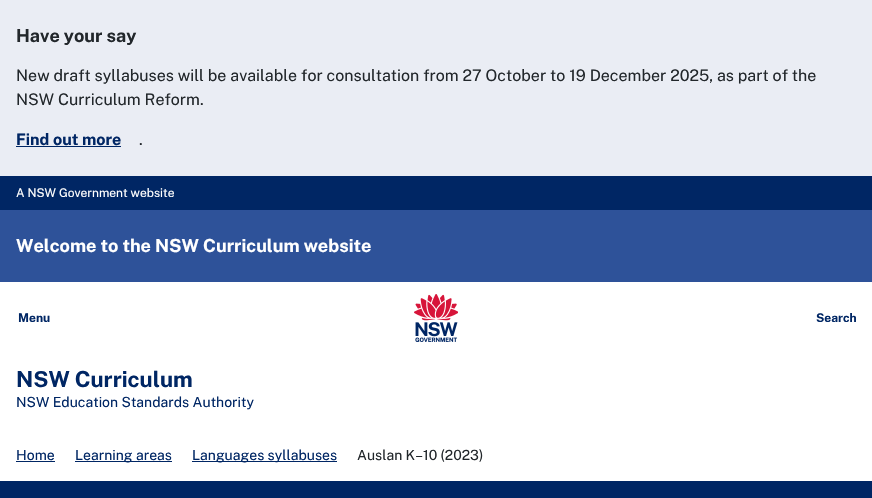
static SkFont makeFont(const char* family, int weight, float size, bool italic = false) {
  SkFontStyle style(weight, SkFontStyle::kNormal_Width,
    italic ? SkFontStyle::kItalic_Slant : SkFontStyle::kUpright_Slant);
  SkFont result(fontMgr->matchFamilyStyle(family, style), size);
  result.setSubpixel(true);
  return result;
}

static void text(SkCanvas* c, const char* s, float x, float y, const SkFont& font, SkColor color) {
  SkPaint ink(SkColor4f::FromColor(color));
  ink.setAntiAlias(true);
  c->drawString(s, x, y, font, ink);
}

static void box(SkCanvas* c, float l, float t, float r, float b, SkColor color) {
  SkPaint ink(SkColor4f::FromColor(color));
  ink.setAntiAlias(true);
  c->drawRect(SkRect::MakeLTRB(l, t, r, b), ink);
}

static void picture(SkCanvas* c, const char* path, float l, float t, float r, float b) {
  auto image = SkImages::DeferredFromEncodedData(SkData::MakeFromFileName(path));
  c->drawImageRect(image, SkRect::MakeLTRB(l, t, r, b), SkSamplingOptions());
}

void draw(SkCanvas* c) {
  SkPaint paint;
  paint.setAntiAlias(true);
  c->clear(0xffffffff);
  box(c, 0, 0, 872, 176, 0xffeaedf4);
  SkFont face1 = makeFont("Public Sans", 700, 18);
  text(c, "Have your say", 16, 42, face1, 0xff22272b);
  SkFont face2 = makeFont("Public Sans", 400, 16);
  text(c, "New draft syllabuses will be available for consultation from 27 October to 19 December 2025, as part of the", 16, 81, face2, 0xff22272b);
  text(c, "NSW Curriculum Reform.", 16, 105, face2, 0xff22272b);
  SkFont face3 = makeFont("Public Sans", 700, 16);
  text(c, "Find out more", 16, 145, face3, 0xff002664);
  box(c, 16, 146, 121, 147, 0xff002664);
  text(c, ".", 139, 145, face2, 0xff22272b);
  box(c, 0, 176, 872, 210, 0xff002664);
  SkFont face4 = makeFont("Public Sans", 400, 12);
  text(c, "A NSW Government website", 16, 197, face4, 0xffffffff);
  box(c, 0, 210, 872, 282, 0xff2e5299);
  text(c, "Welcome to the NSW Curriculum website", 16, 252, face1, 0xffffffff);
  SkFont face5 = makeFont("Public Sans", 700, 12);
  text(c, "Menu", 18, 322, face5, 0xff002664);
  text(c, "Search", 816, 322, face5, 0xff002664);
  picture(c, "img_01.png", 414, 294, 458, 342);
  SkFont face6 = makeFont("Public Sans", 700, 22);
  text(c, "NSW Curriculum", 16, 387, face6, 0xff002664);
  SkFont face7 = makeFont("Public Sans", 400, 14);
  text(c, "NSW Education Standards Authority", 16, 407, face7, 0xff002664);
  text(c, "Home", 16, 460, face7, 0xff002664);
  box(c, 16, 461, 55, 462, 0xff002664);
  box(c, 75, 461, 172, 462, 0xff002664);
  text(c, "Learning areas", 75, 460, face7, 0xff002664);
  box(c, 192, 461, 337, 462, 0xff002664);
  text(c, "Languages syllabuses", 192, 460, face7, 0xff002664);
  text(c, "Auslan K–10 (2023)", 357, 460, face7, 0xff22272b);
  box(c, 0, 481, 872, 498, 0xff002664);
}
